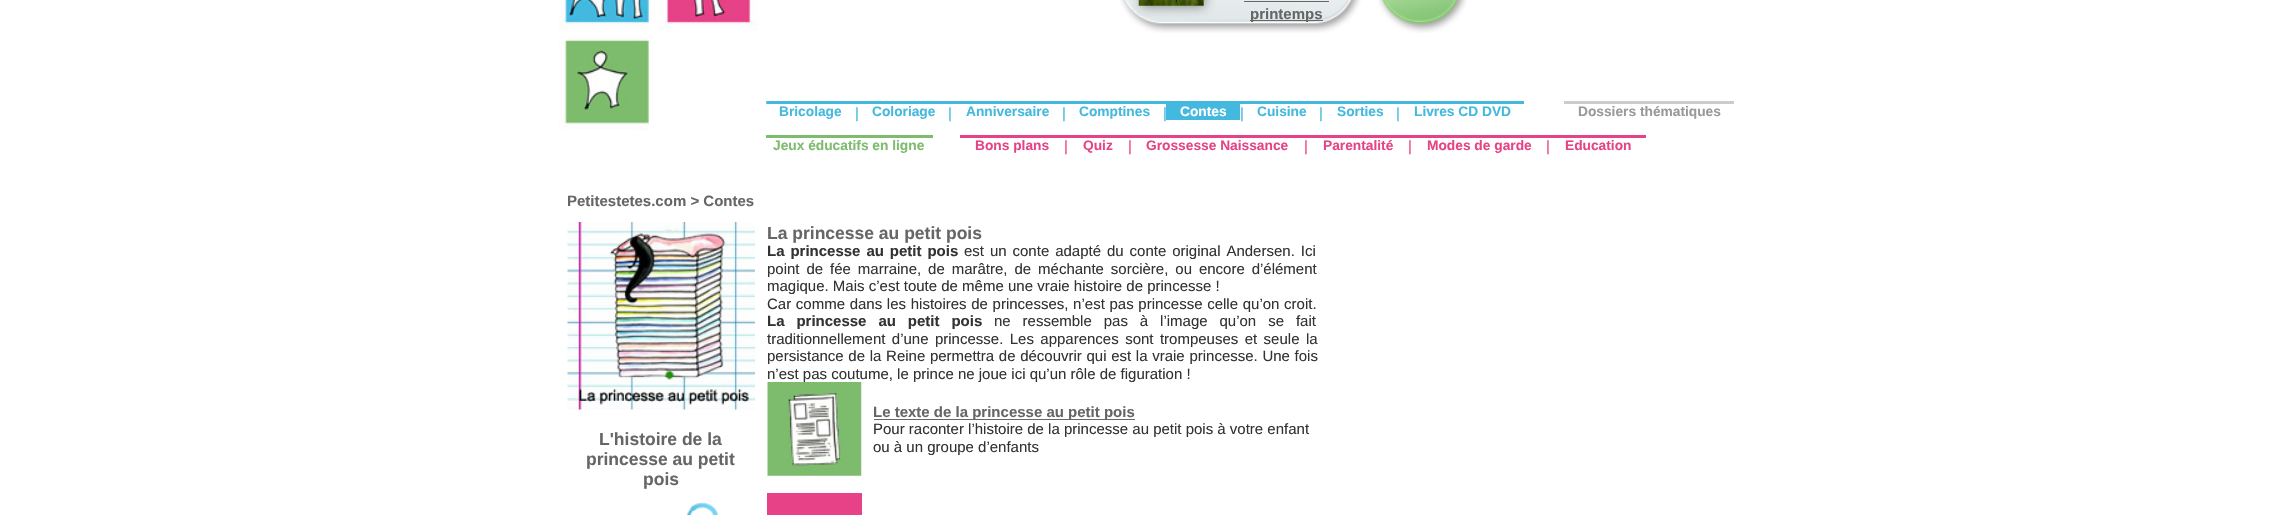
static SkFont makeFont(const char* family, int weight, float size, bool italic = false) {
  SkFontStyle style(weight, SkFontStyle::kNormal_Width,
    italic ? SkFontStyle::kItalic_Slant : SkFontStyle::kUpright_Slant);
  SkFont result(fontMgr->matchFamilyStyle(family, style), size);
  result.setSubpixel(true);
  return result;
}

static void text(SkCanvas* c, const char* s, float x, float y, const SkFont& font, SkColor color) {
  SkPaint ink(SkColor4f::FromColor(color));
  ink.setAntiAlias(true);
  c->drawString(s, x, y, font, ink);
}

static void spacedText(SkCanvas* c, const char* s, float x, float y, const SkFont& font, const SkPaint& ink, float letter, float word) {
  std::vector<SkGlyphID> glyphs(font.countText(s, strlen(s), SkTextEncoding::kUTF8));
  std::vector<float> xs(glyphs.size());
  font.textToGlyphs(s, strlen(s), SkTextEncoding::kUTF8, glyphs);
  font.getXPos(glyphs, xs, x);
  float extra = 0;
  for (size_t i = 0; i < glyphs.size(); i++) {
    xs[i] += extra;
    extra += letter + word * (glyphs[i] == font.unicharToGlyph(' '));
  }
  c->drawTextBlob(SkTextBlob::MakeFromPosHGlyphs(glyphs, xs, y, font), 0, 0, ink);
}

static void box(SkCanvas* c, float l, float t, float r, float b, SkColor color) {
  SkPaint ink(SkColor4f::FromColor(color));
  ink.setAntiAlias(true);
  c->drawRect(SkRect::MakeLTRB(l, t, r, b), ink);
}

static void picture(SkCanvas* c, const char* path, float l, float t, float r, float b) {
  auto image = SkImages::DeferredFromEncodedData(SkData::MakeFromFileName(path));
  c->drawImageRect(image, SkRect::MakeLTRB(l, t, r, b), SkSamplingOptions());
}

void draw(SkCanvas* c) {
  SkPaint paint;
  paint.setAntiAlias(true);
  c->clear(0xffffffff);
  box(c, 766, 101, 1167, 104, 0xff43b9df);
  box(c, 766, 135, 933, 138, 0xff7dbc6d);
  picture(c, "img_01.png", 559, 0, 767, 136);
  picture(c, "img_02.png", 1120, 0, 1361, 33);
  picture(c, "img_03.png", 1138, 0, 1204, 6);
  box(c, 1250, 20, 1323, 21, 0xff666666);
  SkFont face1 = makeFont("Liberation Sans", 700, 15);
  text(c, "printemps", 1250, 19, face1, 0xff666666);
  box(c, 1244, 1, 1329, 2, 0xff666666);
  picture(c, "img_04.png", 1378, 0, 1467, 33);
  SkFont face2 = makeFont("Liberation Sans", 700, 13.75f);
  text(c, "Bricolage", 779, 116, face2, 0xff43b9df);
  SkFont face3 = makeFont("Liberation Sans", 400, 15);
  text(c, "|", 855, 118, face3, 0xff43b9df);
  text(c, "Coloriage", 872, 116, face2, 0xff43b9df);
  text(c, "|", 948, 118, face3, 0xff43b9df);
  text(c, "Anniversaire", 966, 116, face2, 0xff43b9df);
  text(c, "|", 1062, 118, face3, 0xff43b9df);
  text(c, "Comptines", 1079, 116, face2, 0xff43b9df);
  text(c, "|", 1163, 118, face3, 0xff43b9df);
  box(c, 1166, 101, 1240, 120, 0xff43b9df);
  text(c, "Contes", 1180, 116, face2, 0xffffffff);
  text(c, "|", 1240, 118, face3, 0xff43b9df);
  box(c, 1240, 101, 1524, 104, 0xff43b9df);
  text(c, "Cuisine", 1257, 116, face2, 0xff43b9df);
  text(c, "|", 1319, 118, face3, 0xff43b9df);
  text(c, "Sorties", 1337, 116, face2, 0xff43b9df);
  text(c, "|", 1396, 118, face3, 0xff43b9df);
  text(c, "Livres CD DVD", 1414, 116, face2, 0xff43b9df);
  text(c, "Dossiers thématiques", 1578, 116, face2, 0xff999999);
  box(c, 1564, 101, 1734, 104, 0xffcccccc);
  text(c, "Jeux éducatifs en ligne", 773, 150, face2, 0xff7dbc6d);
  text(c, "Bons plans", 975, 150, face2, 0xffe74287);
  box(c, 960, 135, 1646, 138, 0xffe74287);
  text(c, "|", 1064, 151, face3, 0xffe74287);
  text(c, "Quiz", 1083, 150, face2, 0xffe74287);
  text(c, "|", 1128, 151, face3, 0xffe74287);
  text(c, "Grossesse Naissance", 1146, 150, face2, 0xffe74287);
  text(c, "|", 1304, 151, face3, 0xffe74287);
  text(c, "Parentalité", 1323, 150, face2, 0xffe74287);
  text(c, "|", 1408, 151, face3, 0xffe74287);
  text(c, "Modes de garde", 1427, 150, face2, 0xffe74287);
  text(c, "|", 1546, 151, face3, 0xffe74287);
  text(c, "Education", 1565, 150, face2, 0xffe74287);
  text(c, "Petitestetes.com > Contes", 567, 206, face1, 0xff666666);
  picture(c, "img_05.png", 567, 222, 755, 410);
  SkFont face4 = makeFont("Liberation Sans", 700, 17.5f);
  text(c, "L'histoire de la", 599, 445, face4, 0xff666666);
  text(c, "princesse au petit", 586, 465, face4, 0xff666666);
  text(c, "pois", 643, 485, face4, 0xff666666);
  picture(c, "img_06.png", 686, 503, 718, 515);
  text(c, "La princesse au petit pois", 767, 239, face4, 0xff666666);
  paint.setColor(0xff333333);
  spacedText(c, "La princesse au petit pois", 767, 256, face1, paint, 0, 1.75f);
  spacedText(c, "est un conte adapté du conte original Andersen. Ici", 964, 256, face3, paint, 0, 1.75f);
  spacedText(c, "point de fée marraine, de marâtre, de méchante sorcière, ou encore d’élément", 767, 274, face3, paint, 0, 2.75f);
  text(c, "magique. Mais c’est toute de même une vraie histoire de princesse !", 767, 291, face3, 0xff333333);
  spacedText(c, "Car comme dans les histoires de princesses, n’est pas princesse celle qu’on croit.", 767, 309, face3, paint, 0, 0.5f);
  spacedText(c, "La princesse au petit pois", 767, 326, face1, paint, 0, 7.75f);
  spacedText(c, "ne ressemble pas à l’image qu’on se fait", 994, 326, face3, paint, 0, 7.75f);
  spacedText(c, "traditionnellement d’une princesse. Les apparences sont trompeuses et seule la", 767, 344, face3, paint, 0, 2.25f);
  spacedText(c, "persistance de la Reine permettra de découvrir qui est la vraie princesse. Une fois", 767, 361, face3, paint, 0, 0.5f);
  text(c, "n’est pas coutume, le prince ne joue ici qu’un rôle de figuration !", 767, 379, face3, 0xff333333);
  picture(c, "img_07.png", 767, 382, 862, 476);
  box(c, 874, 419, 1135, 420, 0xff666666);
  text(c, "Le texte de la princesse au petit pois", 873, 417, face1, 0xff666666);
  text(c, "Pour raconter l’histoire de la princesse au petit pois à votre enfant", 873, 434, face3, 0xff333333);
  text(c, "ou à un groupe d’enfants", 873, 452, face3, 0xff333333);
  box(c, 767, 493, 862, 515, 0xffe74287);
}
